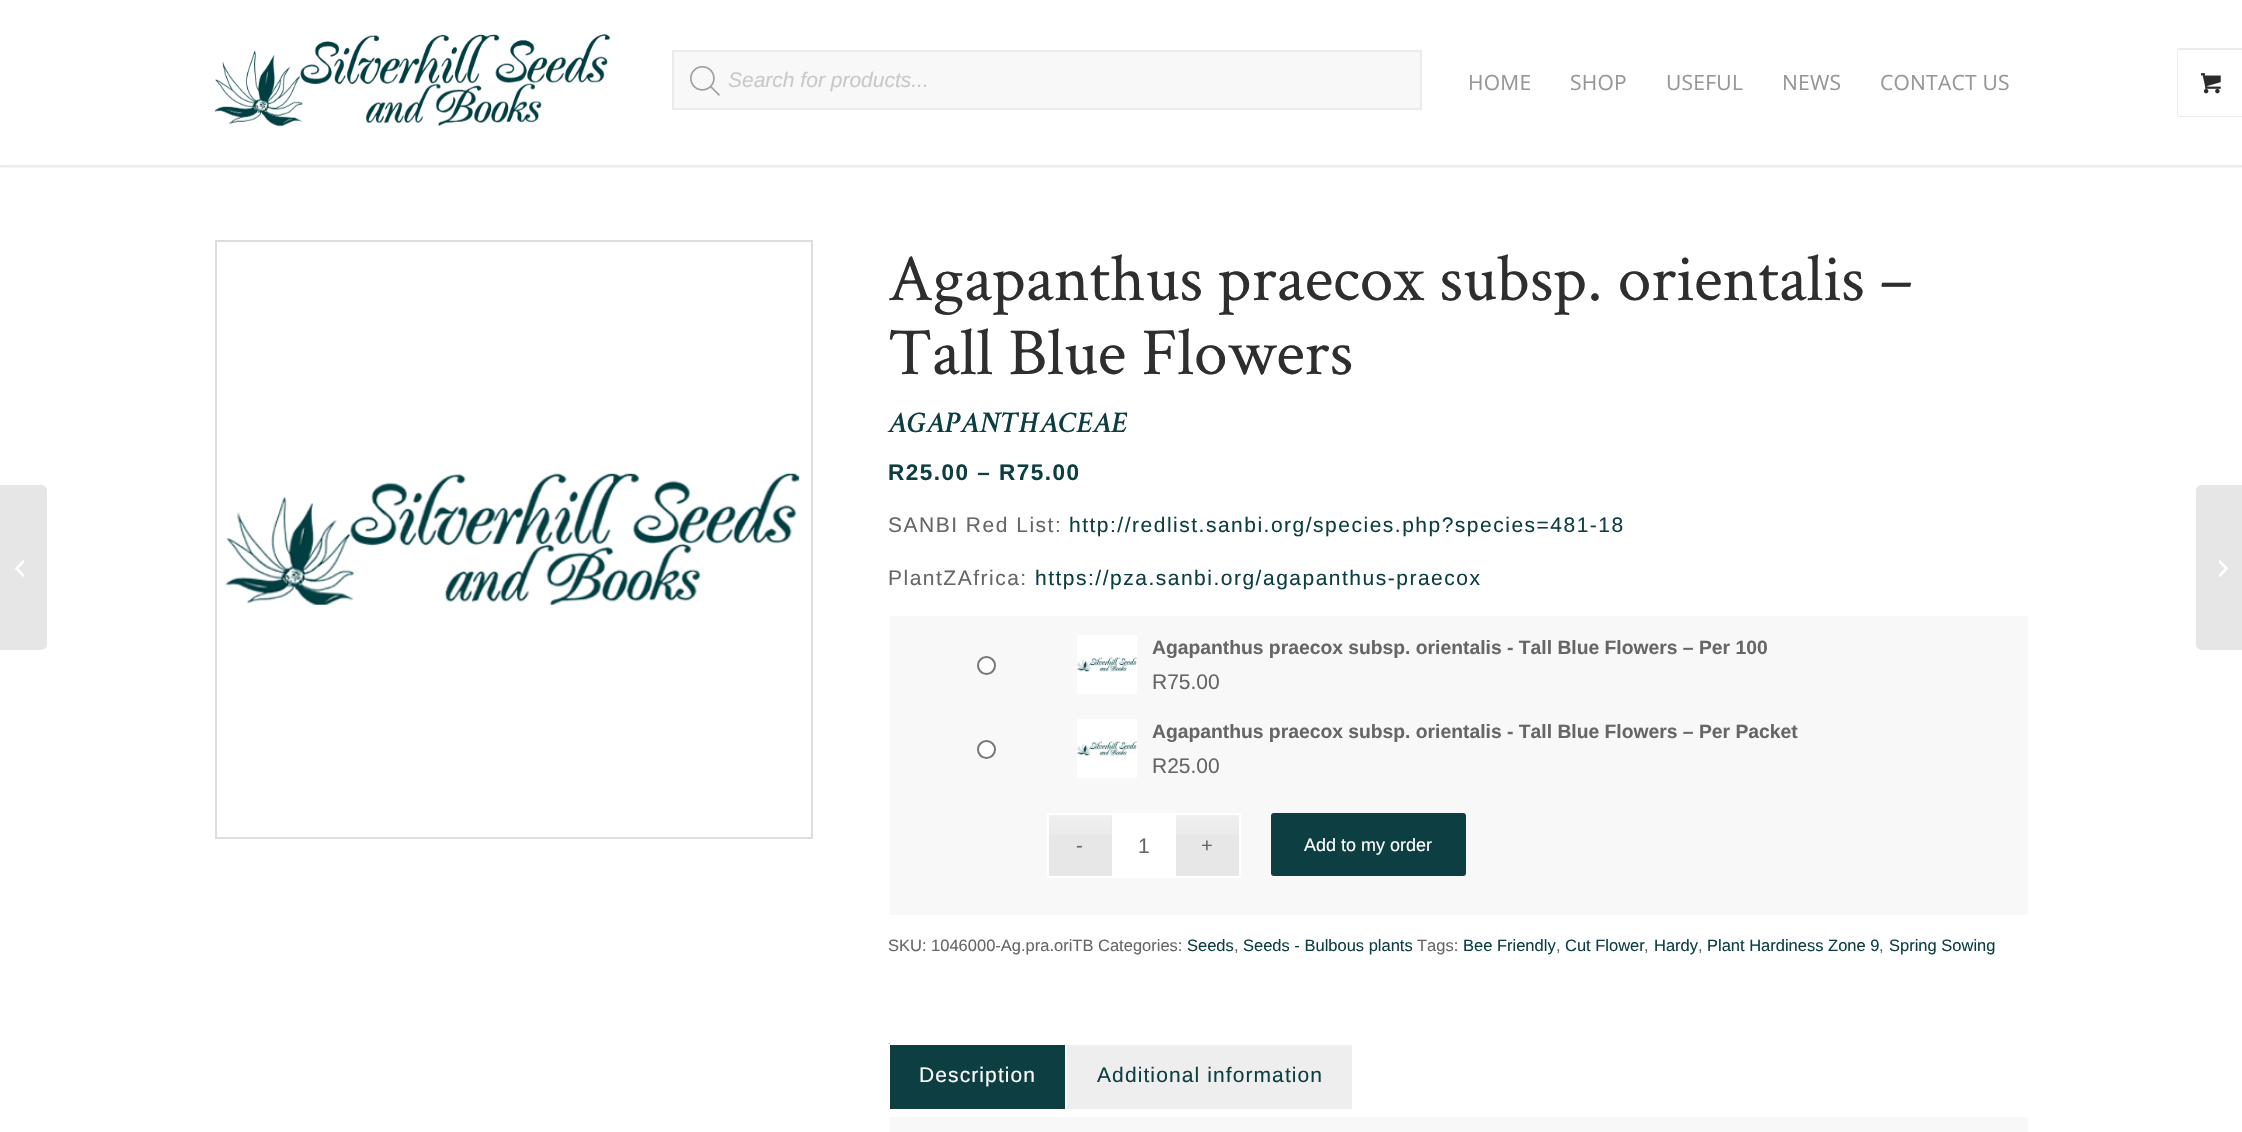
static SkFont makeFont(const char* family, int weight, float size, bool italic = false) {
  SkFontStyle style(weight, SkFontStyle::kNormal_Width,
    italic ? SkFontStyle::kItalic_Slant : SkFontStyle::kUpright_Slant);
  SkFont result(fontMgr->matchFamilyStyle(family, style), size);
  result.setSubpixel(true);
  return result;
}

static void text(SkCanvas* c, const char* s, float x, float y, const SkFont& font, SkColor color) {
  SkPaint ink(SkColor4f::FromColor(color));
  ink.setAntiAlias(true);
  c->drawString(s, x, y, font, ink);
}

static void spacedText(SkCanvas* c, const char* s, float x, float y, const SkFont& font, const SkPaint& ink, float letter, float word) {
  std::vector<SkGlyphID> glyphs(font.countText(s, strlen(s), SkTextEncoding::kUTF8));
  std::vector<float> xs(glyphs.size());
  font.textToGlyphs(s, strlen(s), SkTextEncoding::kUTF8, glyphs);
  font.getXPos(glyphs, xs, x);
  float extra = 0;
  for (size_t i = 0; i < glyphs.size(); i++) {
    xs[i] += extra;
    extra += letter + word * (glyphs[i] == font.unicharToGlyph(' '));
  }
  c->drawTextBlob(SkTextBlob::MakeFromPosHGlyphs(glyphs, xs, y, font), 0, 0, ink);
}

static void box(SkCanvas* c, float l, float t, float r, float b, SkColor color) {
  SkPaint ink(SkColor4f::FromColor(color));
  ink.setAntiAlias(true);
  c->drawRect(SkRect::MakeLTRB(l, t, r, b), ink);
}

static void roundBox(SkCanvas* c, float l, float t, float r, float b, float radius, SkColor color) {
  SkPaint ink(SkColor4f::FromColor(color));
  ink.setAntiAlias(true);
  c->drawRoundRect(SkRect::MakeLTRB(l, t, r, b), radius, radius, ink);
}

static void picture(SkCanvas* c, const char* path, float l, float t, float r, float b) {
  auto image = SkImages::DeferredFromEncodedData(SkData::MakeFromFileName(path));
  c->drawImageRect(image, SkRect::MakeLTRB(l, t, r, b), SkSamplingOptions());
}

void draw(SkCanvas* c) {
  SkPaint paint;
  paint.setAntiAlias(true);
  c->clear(0xffffffff);
  c->save();
  c->clipRect(SkRect::MakeLTRB(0, 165, 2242, 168));
  paint.setColor(0x1a000000);
  paint.setMaskFilter(SkMaskFilter::MakeBlur(kNormal_SkBlurStyle, 1.5f));
  c->drawRect(SkRect::MakeLTRB(-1, -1, 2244, 167), paint);
  paint.setMaskFilter(nullptr);
  c->restore();
  picture(c, "img_01.png", 214, 33, 610, 127);
  paint.setColor(0xfff8f8f8);
  c->drawRect(SkRect::MakeLTRB(673, 51, 1421, 109), paint);
  paint.setStyle(SkPaint::kStroke_Style);
  paint.setStrokeWidth(2);
  paint.setColor(0xffebebeb);
  c->drawRect(SkRect::MakeLTRB(673, 51, 1421, 109), paint);
  picture(c, "img_02.png", 690, 66, 720, 96);
  SkFont face1 = makeFont("Liberation Sans", 400, 21, true);
  text(c, "Search for products...", 728, 87, face1, 0xffc9c9c9);
  SkFont face2 = makeFont("Open Sans", 400, 21);
  paint.setStyle(SkPaint::kFill_Style);
  paint.setColor(0xff969696);
  spacedText(c, "HOME", 1468, 90, face2, paint, 0.25f, 0);
  spacedText(c, "SHOP", 1570, 90, face2, paint, 0.25f, 0);
  spacedText(c, "USEFUL", 1666, 90, face2, paint, 0.25f, 0);
  spacedText(c, "NEWS", 1782, 90, face2, paint, 0.25f, 0);
  spacedText(c, "CONTACT US", 1880, 90, face2, paint, 0.25f, 0);
  paint.setStyle(SkPaint::kStroke_Style);
  paint.setColor(0xffebebeb);
  c->drawRoundRect(SkRect::MakeLTRB(2178, 49, 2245, 116), 2, 2, paint);
  box(c, 2178, 50, 2242, 116, 0xffffffff);
  picture(c, "img_03.png", 2201, 73, 2221, 94);
  paint.setStyle(SkPaint::kFill_Style);
  paint.setColor(0xffe6e6e6);
  c->drawPath(SkPathBuilder().moveTo(0, 485).lineTo(41, 485).cubicTo(44.5f, 485, 47, 487.5f, 47, 491).lineTo(47, 644).cubicTo(47, 647.5f, 44.5f, 650, 41, 650).lineTo(0, 650).close().detach(), paint);
  picture(c, "img_04.png", 15, 560, 24, 577);
  paint.setStyle(SkPaint::kStroke_Style);
  paint.setColor(0xffdddddd);
  c->drawRect(SkRect::MakeLTRB(216, 241, 812, 838), paint);
  picture(c, "img_05.png", 226, 473, 800, 605);
  SkFont face3 = makeFont("Crimson Text", 400, 67.5f);
  text(c, "Agapanthus praecox subsp. orientalis –", 888, 300, face3, 0xff2e2e2e);
  text(c, "Tall Blue Flowers", 888, 374, face3, 0xff2e2e2e);
  SkFont face4 = makeFont("Crimson Text", 600, 30, true);
  text(c, "AGAPANTHACEAE", 888, 432, face4, 0xff0d3e41);
  SkFont face5 = makeFont("Liberation Sans", 700, 22.5f);
  paint.setStyle(SkPaint::kFill_Style);
  paint.setColor(0xff0d3e41);
  spacedText(c, "R25.00 – R75.00", 888, 480, face5, paint, 1.5f, 0);
  SkFont face6 = makeFont("Liberation Sans", 400, 21);
  paint.setColor(0xff666666);
  spacedText(c, "SANBI Red List:", 888, 532, face6, paint, 1.5f, 0);
  paint.setColor(0xff0d3e41);
  spacedText(c, "http://redlist.sanbi.org/species.php?species=481-18", 1069, 532, face6, paint, 1.5f, 0);
  paint.setColor(0xff666666);
  spacedText(c, "PlantZAfrica:", 888, 585, face6, paint, 1.5f, 0);
  paint.setColor(0xff0d3e41);
  spacedText(c, "https://pza.sanbi.org/agapanthus-praecox", 1035, 585, face6, paint, 1.5f, 0);
  paint.setColor(0xfff8f8f8);
  c->drawRoundRect(SkRect::MakeLTRB(889, 615, 2029, 916), 2, 2, paint);
  paint.setStyle(SkPaint::kStroke_Style);
  paint.setColor(0xffffffff);
  c->drawRoundRect(SkRect::MakeLTRB(889, 615, 2029, 916), 2, 2, paint);
  paint.setStyle(SkPaint::kFill_Style);
  c->drawCircle(986.5f, 665.5f, 8.5f, paint);
  paint.setStyle(SkPaint::kStroke_Style);
  paint.setColor(0xff767676);
  c->drawCircle(986.5f, 665.5f, 8.5f, paint);
  picture(c, "img_06.png", 1077, 635, 1137, 694);
  SkFont face7 = makeFont("Liberation Sans", 700, 19.3f);
  text(c, "Agapanthus praecox subsp. orientalis - Tall Blue Flowers – Per 100", 1152, 654, face7, 0xff666666);
  text(c, "R75.00", 1152, 689, face6, 0xff666666);
  paint.setStyle(SkPaint::kFill_Style);
  paint.setColor(0xffffffff);
  c->drawCircle(986.5f, 749.5f, 8.5f, paint);
  paint.setStyle(SkPaint::kStroke_Style);
  paint.setColor(0xff767676);
  c->drawCircle(986.5f, 749.5f, 8.5f, paint);
  picture(c, "img_06.png", 1077, 719, 1137, 778);
  text(c, "Agapanthus praecox subsp. orientalis - Tall Blue Flowers – Per Packet", 1152, 738, face7, 0xff666666);
  text(c, "R25.00", 1152, 773, face6, 0xff666666);
  box(c, 1049, 815, 1112, 876, 0xffe7e7e7);
  picture(c, "img_07.png", 1049, 815, 1112, 835);
  box(c, 1176, 815, 1239, 876, 0xffe7e7e7);
  picture(c, "img_08.png", 1176, 815, 1239, 835);
  SkFont face8 = makeFont("Liberation Sans", 400, 20);
  text(c, "-", 1076, 852, face8, 0xff666666);
  box(c, 1047, 813, 1112, 815, 0xffffffff);
  box(c, 1047, 876, 1112, 878, 0xffffffff);
  box(c, 1047, 813, 1049, 878, 0xffffffff);
  box(c, 1112, 813, 1176, 878, 0xffffffff);
  text(c, "1", 1138, 853, face6, 0xff666666);
  text(c, "+", 1201, 852, face8, 0xff666666);
  box(c, 1176, 813, 1241, 815, 0xffffffff);
  box(c, 1239, 813, 1241, 878, 0xffffffff);
  box(c, 1176, 876, 1241, 878, 0xffffffff);
  roundBox(c, 1271, 813, 1466, 876, 3, 0xff0d3e41);
  SkFont face9 = makeFont("Liberation Sans", 400, 18);
  text(c, "Add to my order", 1304, 851, face9, 0xffffffff);
  SkFont face10 = makeFont("Liberation Sans", 400, 16.5f);
  text(c, "SKU: 1046000-Ag.pra.oriTB Categories:", 888, 951, face10, 0xff666666);
  text(c, "Seeds", 1187, 951, face10, 0xff0d3e41);
  text(c, ",", 1234, 951, face10, 0xff666666);
  text(c, "Seeds - Bulbous plants", 1243, 951, face10, 0xff0d3e41);
  text(c, "Tags:", 1417, 951, face10, 0xff666666);
  text(c, "Bee Friendly", 1463, 951, face10, 0xff0d3e41);
  text(c, ",", 1556, 951, face10, 0xff666666);
  text(c, "Cut Flower", 1565, 951, face10, 0xff0d3e41);
  text(c, ",", 1644, 951, face10, 0xff666666);
  text(c, "Hardy", 1654, 951, face10, 0xff0d3e41);
  text(c, ",", 1698, 951, face10, 0xff666666);
  text(c, "Plant Hardiness Zone 9", 1707, 951, face10, 0xff0d3e41);
  text(c, ",", 1879, 951, face10, 0xff666666);
  text(c, "Spring Sowing", 1889, 951, face10, 0xff0d3e41);
  paint.setStyle(SkPaint::kFill_Style);
  paint.setColor(0xff0d3e41);
  c->drawPath(SkPathBuilder().moveTo(891, 1043).lineTo(1067, 1043).lineTo(1067, 1109).lineTo(888, 1109).lineTo(888, 1046).cubicTo(888, 1044.5f, 889.5f, 1043, 891, 1043).close().detach(), paint);
  box(c, 890, 1043, 1067, 1045, 0xffffffff);
  box(c, 888, 1044, 890, 1109, 0xffffffff);
  paint.setColor(0xffffffff);
  spacedText(c, "Description", 919, 1082, face6, paint, 1.1f, 0);
  paint.setColor(0xffeeeeee);
  c->drawPath(SkPathBuilder().moveTo(1065, 1043).lineTo(1350, 1043).cubicTo(1351.5f, 1043, 1353, 1044.5f, 1353, 1046).lineTo(1353, 1109).lineTo(1065, 1109).close().detach(), paint);
  box(c, 1065, 1043, 1352, 1045, 0xffffffff);
  box(c, 1352, 1044, 1353, 1109, 0xffffffff);
  box(c, 1065, 1043, 1067, 1109, 0xffffffff);
  paint.setColor(0xff0d3e41);
  spacedText(c, "Additional information", 1097, 1082, face6, paint, 1.1f, 0);
  box(c, 890, 1117, 2028, 1132, 0xfff8f8f8);
  paint.setColor(0xffe6e6e6);
  c->drawPath(SkPathBuilder().moveTo(2202, 485).lineTo(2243, 485).lineTo(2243, 650).lineTo(2202, 650).cubicTo(2198.5f, 650, 2196, 647.5f, 2196, 644).lineTo(2196, 491).cubicTo(2196, 487.5f, 2198.5f, 485, 2202, 485).close().detach(), paint);
  picture(c, "img_09.png", 2219, 560, 2228, 577);
}
